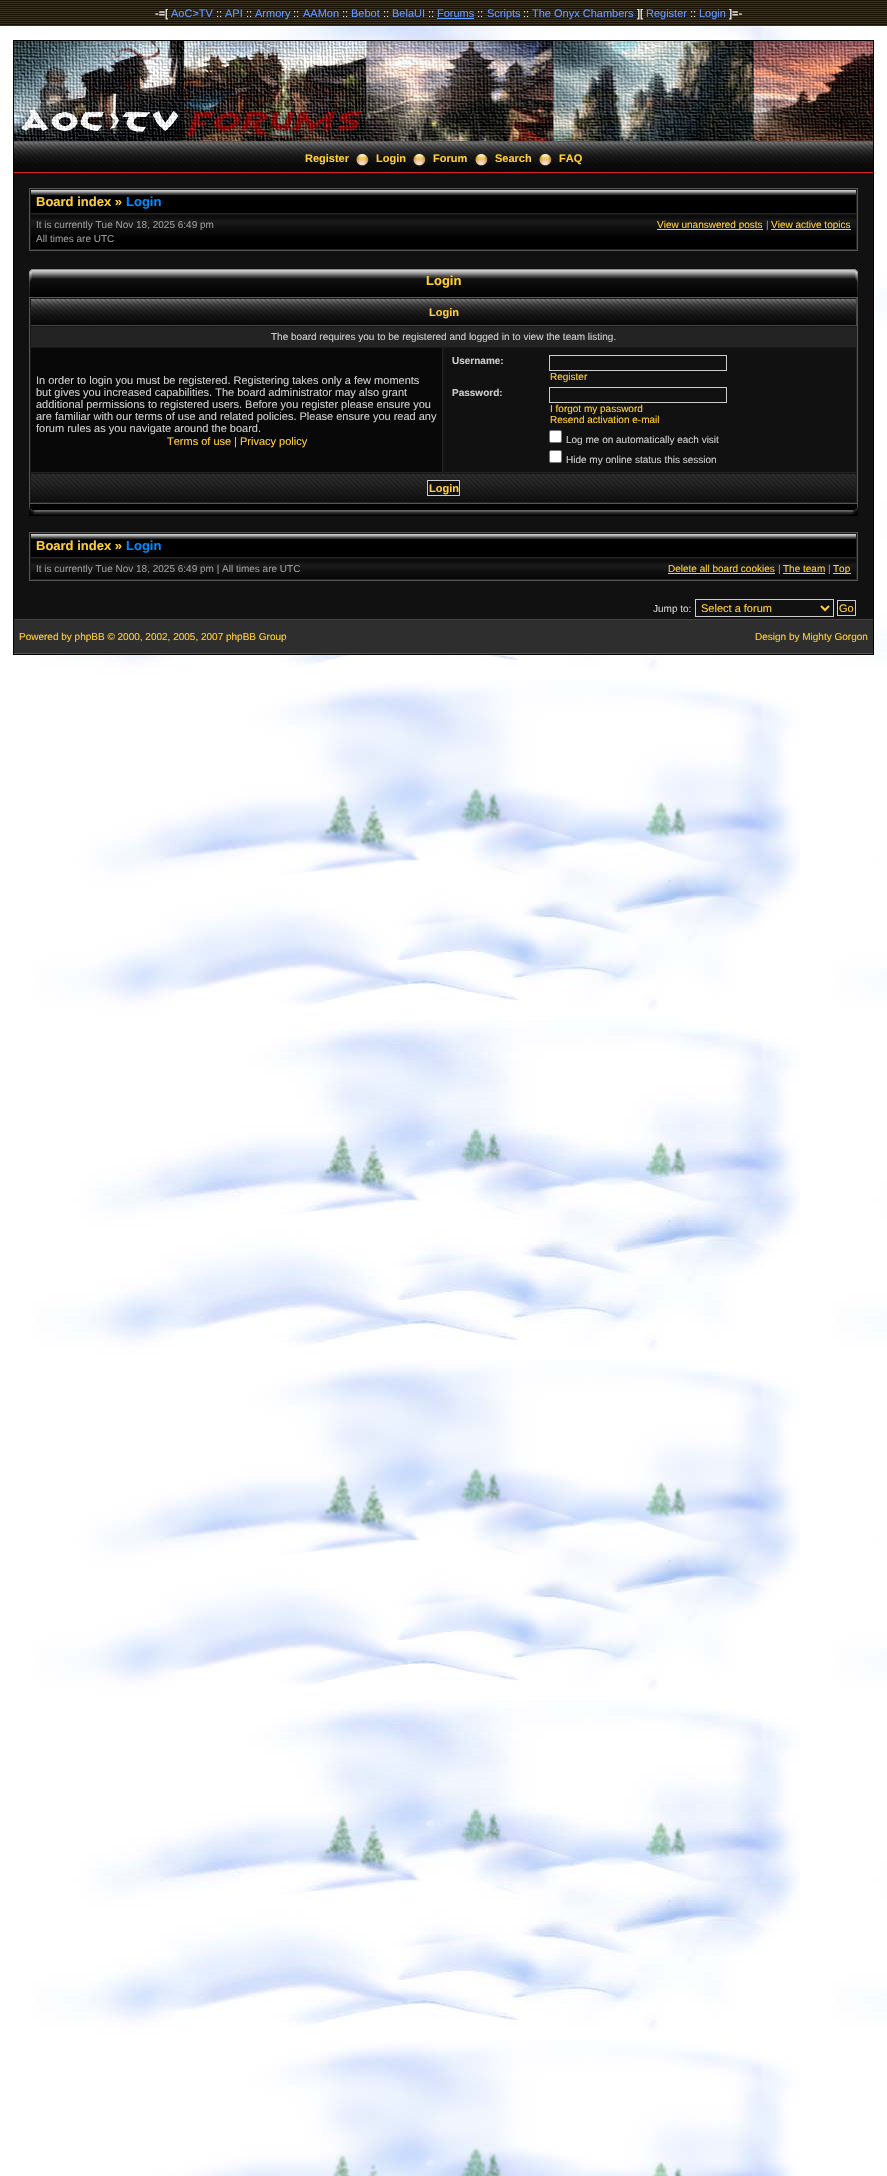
static SkFont makeFont(const char* family, int weight, float size, bool italic = false) {
  SkFontStyle style(weight, SkFontStyle::kNormal_Width,
    italic ? SkFontStyle::kItalic_Slant : SkFontStyle::kUpright_Slant);
  SkFont result(fontMgr->matchFamilyStyle(family, style), size);
  result.setSubpixel(true);
  return result;
}

static void text(SkCanvas* c, const char* s, float x, float y, const SkFont& font, SkColor color) {
  SkPaint ink(SkColor4f::FromColor(color));
  ink.setAntiAlias(true);
  c->drawString(s, x, y, font, ink);
}

static void box(SkCanvas* c, float l, float t, float r, float b, SkColor color) {
  SkPaint ink(SkColor4f::FromColor(color));
  ink.setAntiAlias(true);
  c->drawRect(SkRect::MakeLTRB(l, t, r, b), ink);
}

static void picture(SkCanvas* c, const char* path, float l, float t, float r, float b) {
  auto image = SkImages::DeferredFromEncodedData(SkData::MakeFromFileName(path));
  c->drawImageRect(image, SkRect::MakeLTRB(l, t, r, b), SkSamplingOptions());
}

void draw(SkCanvas* c) {
  SkPaint paint;
  paint.setAntiAlias(true);
  c->clear(0xffffffff);
  picture(c, "img_01.png", 0, 26, 887, 2176);
  picture(c, "img_02.png", 0, 0, 887, 26);
  SkFont face1 = makeFont("Liberation Sans", 400, 11);
  text(c, "-=[", 155, 17, face1, 0xffffffff);
  text(c, "AoC>TV", 171, 17, face1, 0xff6699ff);
  text(c, "::", 216, 17, face1, 0xffffffff);
  text(c, "API", 225, 17, face1, 0xff6699ff);
  text(c, "::", 246, 17, face1, 0xffffffff);
  text(c, "Armory", 255, 17, face1, 0xff6699ff);
  text(c, "::", 293, 17, face1, 0xffffffff);
  text(c, "AAMon", 303, 17, face1, 0xff6699ff);
  text(c, "::", 342, 17, face1, 0xffffffff);
  text(c, "Bebot", 351, 17, face1, 0xff6699ff);
  text(c, "::", 383, 17, face1, 0xffffffff);
  text(c, "BelaUI", 392, 17, face1, 0xff6699ff);
  text(c, "::", 428, 17, face1, 0xffffffff);
  text(c, "Forums", 437, 17, face1, 0xff6699ff);
  box(c, 437, 18, 474, 19, 0xff6699ff);
  text(c, "::", 477, 17, face1, 0xffffffff);
  text(c, "Scripts", 487, 17, face1, 0xff6699ff);
  text(c, "::", 523, 17, face1, 0xffffffff);
  text(c, "The Onyx Chambers", 532, 17, face1, 0xff6699ff);
  text(c, "][", 637, 17, face1, 0xffffffff);
  text(c, "Register", 646, 17, face1, 0xff6699ff);
  text(c, "::", 690, 17, face1, 0xffffffff);
  text(c, "Login", 699, 17, face1, 0xff6699ff);
  text(c, "]=-", 729, 17, face1, 0xffffffff);
  paint.setStyle(SkPaint::kStroke_Style);
  paint.setStrokeWidth(1);
  paint.setColor(0xff000000);
  c->drawRect(SkRect::MakeLTRB(13.5f, 40.5f, 873.5f, 654.5f), paint);
  box(c, 14, 173, 873, 619, 0xff111111);
  picture(c, "img_03.png", 14, 41, 873, 141);
  picture(c, "img_04.png", 18, 41, 366, 141);
  picture(c, "img_05.png", 14, 142, 873, 172);
  box(c, 14, 141, 873, 142, 0xffdd2222);
  box(c, 14, 172, 873, 173, 0xffdd2222);
  SkFont face2 = makeFont("Liberation Sans", 700, 11);
  text(c, "Register", 305, 162, face2, 0xffffcc33);
  picture(c, "img_06.png", 356, 153, 369, 166);
  text(c, "Login", 376, 162, face2, 0xffffcc33);
  picture(c, "img_07.png", 413, 153, 426, 166);
  text(c, "Forum", 433, 162, face2, 0xffffcc33);
  picture(c, "img_08.png", 475, 153, 488, 166);
  text(c, "Search", 495, 162, face2, 0xffffcc33);
  picture(c, "img_09.png", 539, 153, 552, 166);
  text(c, "FAQ", 559, 162, face2, 0xffffcc33);
  paint.setColor(0xff555555);
  c->drawRect(SkRect::MakeLTRB(29.5f, 188.5f, 857.5f, 250.5f), paint);
  picture(c, "img_10.png", 31, 190, 856, 213);
  box(c, 30, 189, 857, 190, 0xff181818);
  box(c, 856, 189, 857, 214, 0xff222222);
  box(c, 30, 213, 857, 214, 0xff222222);
  box(c, 30, 189, 31, 214, 0xff181818);
  SkFont face3 = makeFont("Liberation Sans", 700, 13);
  text(c, "Board index »", 36, 206, face3, 0xffffcc33);
  text(c, "Login", 126, 206, face3, 0xff0088ff);
  picture(c, "img_11.png", 31, 215, 856, 249);
  box(c, 30, 214, 857, 215, 0xff181818);
  box(c, 856, 214, 857, 250, 0xff222222);
  box(c, 30, 249, 857, 250, 0xff222222);
  box(c, 30, 214, 31, 250, 0xff181818);
  SkFont face4 = makeFont("Liberation Sans", 400, 10);
  text(c, "It is currently Tue Nov 18, 2025 6:49 pm", 36, 228, face4, 0xff999999);
  text(c, "All times are UTC", 36, 242, face4, 0xff999999);
  box(c, 657, 229, 763, 230, 0xffffcc33);
  text(c, "View unanswered posts", 657, 228, face4, 0xffffcc33);
  text(c, "|", 766, 228, face4, 0xff999999);
  box(c, 771, 229, 851, 230, 0xffffcc33);
  text(c, "View active topics", 771, 228, face4, 0xffffcc33);
  picture(c, "img_12.png", 29, 269, 56, 297);
  picture(c, "img_13.png", 831, 269, 858, 297);
  picture(c, "img_14.png", 56, 269, 831, 297);
  text(c, "Login", 426, 285, face3, 0xffffcc33);
  c->drawRect(SkRect::MakeLTRB(29.5f, 297.5f, 857.5f, 503.5f), paint);
  picture(c, "img_15.png", 31, 299, 856, 325);
  box(c, 30, 298, 857, 299, 0xff181818);
  box(c, 856, 298, 857, 326, 0xff444444);
  box(c, 30, 325, 857, 326, 0xff444444);
  box(c, 30, 298, 31, 326, 0xff181818);
  text(c, "Login", 429, 316, face2, 0xffffcc33);
  box(c, 31, 327, 856, 347, 0xff232323);
  box(c, 30, 326, 857, 327, 0xff181818);
  box(c, 856, 326, 857, 347, 0xff222222);
  box(c, 30, 326, 31, 347, 0xff181818);
  text(c, "The board requires you to be registered and logged in to view the team listing.", 271, 340, face4, 0xffcccccc);
  box(c, 31, 348, 442, 472, 0xff080808);
  box(c, 30, 347, 857, 348, 0xff181818);
  box(c, 442, 347, 443, 473, 0xff222222);
  box(c, 30, 472, 443, 473, 0xff222222);
  box(c, 30, 347, 31, 473, 0xff181818);
  text(c, "In order to login you must be registered. Registering takes only a few moments", 36, 384, face1, 0xffcccccc);
  text(c, "but gives you increased capabilities. The board administrator may also grant", 36, 396, face1, 0xffcccccc);
  text(c, "additional permissions to registered users. Before you register please ensure you", 36, 408, face1, 0xffcccccc);
  text(c, "are familiar with our terms of use and related policies. Please ensure you read any", 36, 420, face1, 0xffcccccc);
  text(c, "forum rules as you navigate around the board.", 36, 432, face1, 0xffcccccc);
  text(c, "Terms of use", 167, 445, face1, 0xffffcc33);
  text(c, "|", 234, 445, face1, 0xffcccccc);
  text(c, "Privacy policy", 240, 445, face1, 0xffffcc33);
  box(c, 856, 347, 857, 473, 0xff222222);
  box(c, 443, 472, 857, 473, 0xff222222);
  box(c, 443, 347, 444, 473, 0xff181818);
  SkFont face5 = makeFont("Liberation Sans", 700, 10);
  text(c, "Username:", 452, 364, face5, 0xffcccccc);
  paint.setColor(0xffcccccc);
  c->drawRect(SkRect::MakeLTRB(549.5f, 355.5f, 726.5f, 370.5f), paint);
  text(c, "Register", 550, 380, face4, 0xffffcc33);
  text(c, "Password:", 452, 396, face5, 0xffcccccc);
  c->drawRect(SkRect::MakeLTRB(549.5f, 387.5f, 726.5f, 402.5f), paint);
  text(c, "I forgot my password", 550, 412, face4, 0xffffcc33);
  text(c, "Resend activation e-mail", 550, 423, face4, 0xffffcc33);
  paint.setStyle(SkPaint::kFill_Style);
  paint.setColor(0xffffffff);
  c->drawRoundRect(SkRect::MakeLTRB(549.5f, 430.5f, 561.5f, 442.5f), 1.5f, 1.5f, paint);
  paint.setStyle(SkPaint::kStroke_Style);
  paint.setColor(0xff767676);
  c->drawRoundRect(SkRect::MakeLTRB(549.5f, 430.5f, 561.5f, 442.5f), 1.5f, 1.5f, paint);
  text(c, "Log me on automatically each visit", 566, 443, face4, 0xffcccccc);
  paint.setStyle(SkPaint::kFill_Style);
  paint.setColor(0xffffffff);
  c->drawRoundRect(SkRect::MakeLTRB(549.5f, 450.5f, 561.5f, 462.5f), 1.5f, 1.5f, paint);
  paint.setStyle(SkPaint::kStroke_Style);
  paint.setColor(0xff767676);
  c->drawRoundRect(SkRect::MakeLTRB(549.5f, 450.5f, 561.5f, 462.5f), 1.5f, 1.5f, paint);
  text(c, "Hide my online status this session", 566, 463, face4, 0xffcccccc);
  picture(c, "img_16.png", 31, 474, 856, 502);
  box(c, 30, 473, 857, 474, 0xff181818);
  box(c, 856, 473, 857, 503, 0xff222222);
  box(c, 30, 502, 857, 503, 0xff222222);
  box(c, 30, 473, 31, 503, 0xff181818);
  paint.setStyle(SkPaint::kFill_Style);
  paint.setColor(0xff111111);
  c->drawRect(SkRect::MakeLTRB(427.5f, 480.5f, 459.5f, 495.5f), paint);
  paint.setStyle(SkPaint::kStroke_Style);
  paint.setColor(0xffcccccc);
  c->drawRect(SkRect::MakeLTRB(427.5f, 480.5f, 459.5f, 495.5f), paint);
  text(c, "Login", 429, 492, face2, 0xffffcc33);
  picture(c, "img_17.png", 29, 504, 39, 516);
  picture(c, "img_18.png", 848, 504, 858, 516);
  picture(c, "img_19.png", 39, 504, 848, 516);
  paint.setColor(0xff555555);
  c->drawRect(SkRect::MakeLTRB(29.5f, 532.5f, 857.5f, 580.5f), paint);
  picture(c, "img_10.png", 31, 534, 856, 557);
  box(c, 30, 533, 857, 534, 0xff181818);
  box(c, 856, 533, 857, 558, 0xff222222);
  box(c, 30, 557, 857, 558, 0xff222222);
  box(c, 30, 533, 31, 558, 0xff181818);
  text(c, "Board index »", 36, 550, face3, 0xffffcc33);
  text(c, "Login", 126, 550, face3, 0xff0088ff);
  picture(c, "img_20.png", 31, 559, 856, 579);
  box(c, 30, 558, 857, 559, 0xff181818);
  box(c, 856, 558, 857, 580, 0xff222222);
  box(c, 30, 579, 857, 580, 0xff222222);
  box(c, 30, 558, 31, 580, 0xff181818);
  text(c, "It is currently Tue Nov 18, 2025 6:49 pm | All times are UTC", 36, 572, face4, 0xff999999);
  text(c, "Delete all board cookies", 668, 572, face4, 0xffffcc33);
  box(c, 668, 573, 775, 574, 0xffffcc33);
  text(c, "|", 778, 572, face4, 0xff999999);
  text(c, "The team", 783, 572, face4, 0xffffcc33);
  box(c, 783, 573, 825, 574, 0xffffcc33);
  text(c, "|", 828, 572, face4, 0xff999999);
  box(c, 833, 573, 851, 574, 0xffffcc33);
  text(c, "Top", 833, 572, face4, 0xffffcc33);
  text(c, "Jump to:", 653, 612, face4, 0xffcccccc);
  paint.setColor(0xffcccccc);
  c->drawRect(SkRect::MakeLTRB(695.5f, 599.5f, 833.5f, 616.5f), paint);
  paint.setStrokeWidth(2);
  paint.setColor(0xffffcc33);
  c->drawPath(SkPathBuilder().moveTo(821, 606).lineTo(825, 610).lineTo(829, 606).detach(), paint);
  text(c, "Select a forum", 701, 612, face1, 0xffffcc33);
  paint.setStrokeWidth(1);
  paint.setColor(0xffcccccc);
  c->drawRect(SkRect::MakeLTRB(837.5f, 600.5f, 855.5f, 615.5f), paint);
  text(c, "Go", 839, 612, face1, 0xffffcc33);
  box(c, 14, 619, 873, 620, 0xff444444);
  box(c, 14, 653, 873, 654, 0xff555555);
  box(c, 14, 620, 873, 653, 0xff2e2e2e);
  text(c, "Powered by phpBB © 2000, 2002, 2005, 2007 phpBB Group", 19, 640, face4, 0xffffcc33);
  text(c, "Design by Mighty Gorgon", 755, 640, face4, 0xffffcc33);
}
